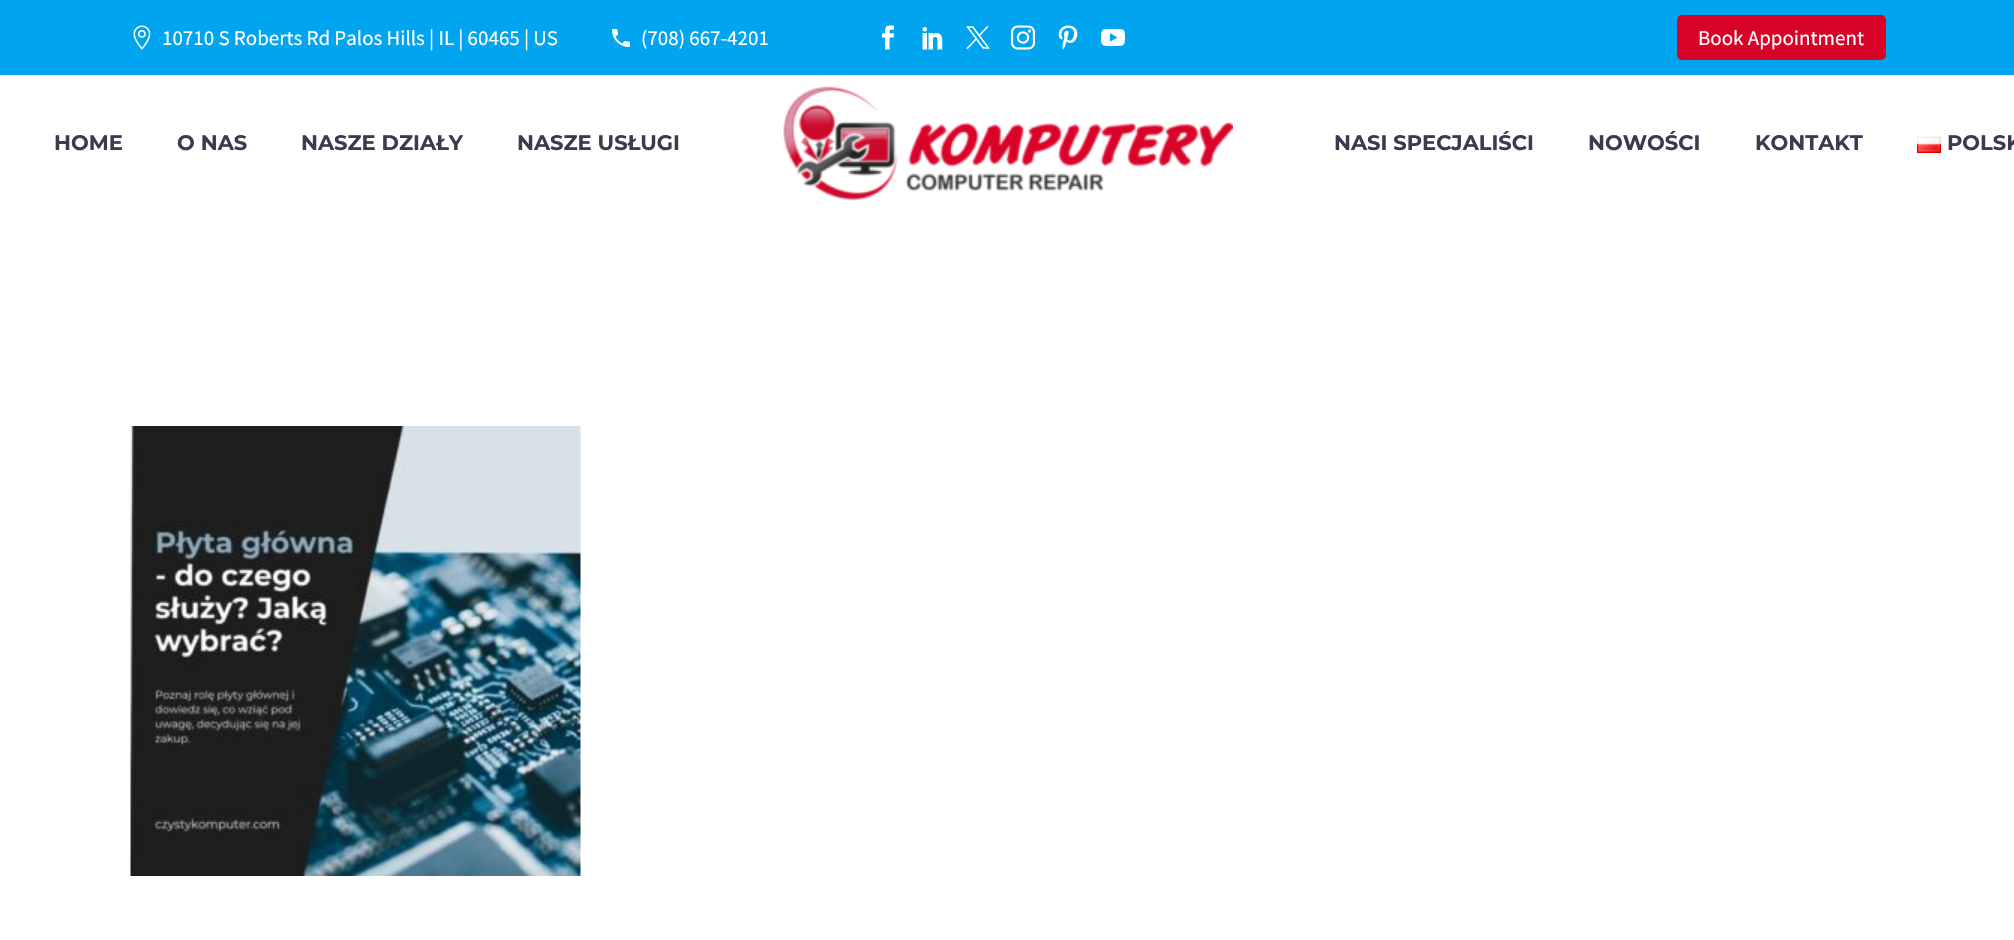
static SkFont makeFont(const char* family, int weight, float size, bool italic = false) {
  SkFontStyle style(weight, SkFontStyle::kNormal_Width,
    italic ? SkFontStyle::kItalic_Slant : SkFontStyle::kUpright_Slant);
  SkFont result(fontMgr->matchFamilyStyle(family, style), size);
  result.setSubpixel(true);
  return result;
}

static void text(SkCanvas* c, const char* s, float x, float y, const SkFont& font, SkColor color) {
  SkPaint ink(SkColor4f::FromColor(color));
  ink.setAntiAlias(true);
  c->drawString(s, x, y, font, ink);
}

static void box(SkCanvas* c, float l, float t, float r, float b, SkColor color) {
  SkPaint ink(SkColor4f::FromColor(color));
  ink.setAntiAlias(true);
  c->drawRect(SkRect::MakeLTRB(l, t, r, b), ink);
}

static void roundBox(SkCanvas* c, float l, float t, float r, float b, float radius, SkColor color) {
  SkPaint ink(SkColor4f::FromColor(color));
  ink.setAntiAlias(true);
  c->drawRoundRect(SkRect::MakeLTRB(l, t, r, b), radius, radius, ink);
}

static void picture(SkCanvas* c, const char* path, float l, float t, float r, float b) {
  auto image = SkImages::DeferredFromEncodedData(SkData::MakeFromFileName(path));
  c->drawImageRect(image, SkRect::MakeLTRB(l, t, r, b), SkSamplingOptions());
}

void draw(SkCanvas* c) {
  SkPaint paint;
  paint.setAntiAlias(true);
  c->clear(0xff00a4ef);
  picture(c, "img_01.png", 133, 25, 151, 50);
  SkFont face1 = makeFont("Source Sans Pro", 400, 21);
  text(c, "10710 S Roberts Rd Palos Hills | IL | 60465 | US", 162, 45, face1, 0xffffffff);
  picture(c, "img_02.png", 612, 29, 630, 47);
  text(c, "(708) 667-4201", 641, 45, face1, 0xffffffff);
  picture(c, "img_03.png", 882, 25, 895, 50);
  picture(c, "img_04.png", 922, 27, 943, 50);
  picture(c, "img_05.png", 966, 26, 990, 49);
  picture(c, "img_06.png", 1011, 25, 1035, 50);
  picture(c, "img_07.png", 1058, 25, 1078, 50);
  picture(c, "img_08.png", 1101, 29, 1125, 46);
  roundBox(c, 1677, 15, 1886, 60, 5, 0xffd80428);
  text(c, "Book Appointment", 1698, 45, face1, 0xffffffff);
  box(c, 0, 75, 2014, 940, 0xffffffff);
  SkFont face2 = makeFont("Montserrat", 700, 21);
  text(c, "HOME", 54, 150, face2, 0xff3c3950);
  text(c, "O NAS", 177, 150, face2, 0xff3c3950);
  text(c, "NASZE DZIAŁY", 301, 150, face2, 0xff3c3950);
  text(c, "NASZE USŁUGI", 517, 150, face2, 0xff3c3950);
  picture(c, "img_09.png", 783, 86, 1233, 201);
  text(c, "NASI SPECJALIŚCI", 1334, 150, face2, 0xff3c3950);
  text(c, "NOWOŚCI", 1588, 150, face2, 0xff3c3950);
  text(c, "KONTAKT", 1755, 150, face2, 0xff3c3950);
  picture(c, "img_10.png", 1917, 136, 1941, 153);
  text(c, "POLSK", 1947, 150, face2, 0xff3c3950);
  picture(c, "img_11.png", 130, 426, 581, 876);
}
